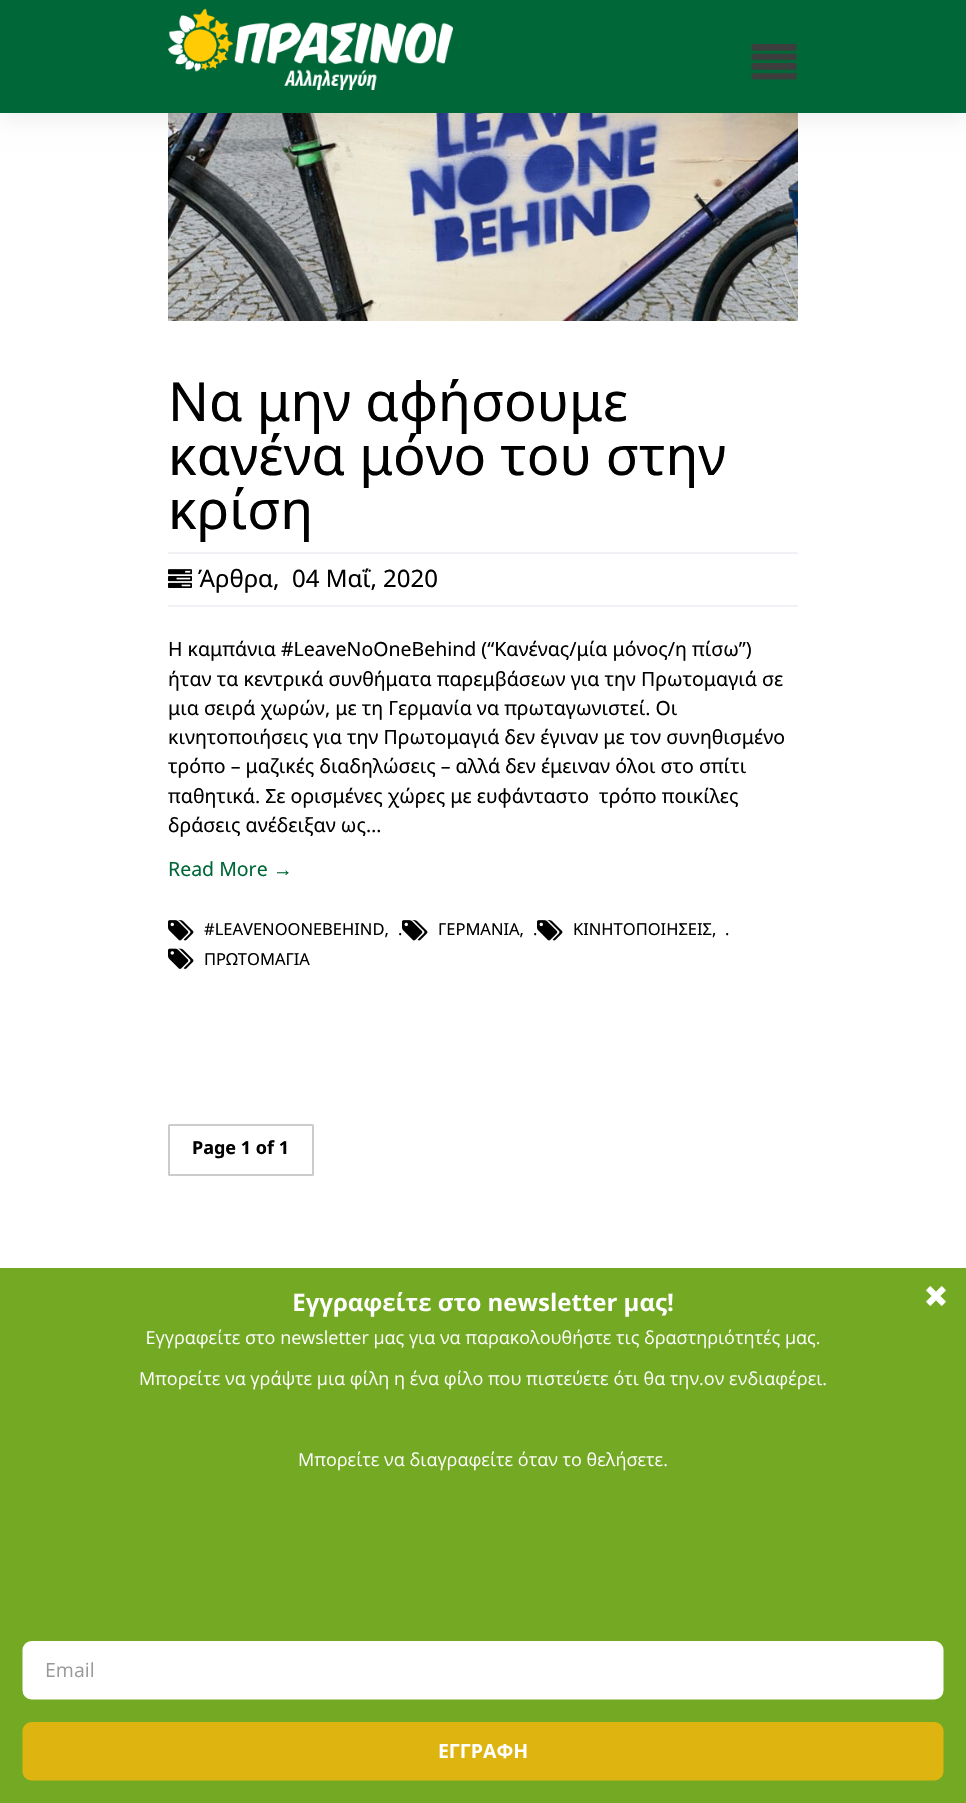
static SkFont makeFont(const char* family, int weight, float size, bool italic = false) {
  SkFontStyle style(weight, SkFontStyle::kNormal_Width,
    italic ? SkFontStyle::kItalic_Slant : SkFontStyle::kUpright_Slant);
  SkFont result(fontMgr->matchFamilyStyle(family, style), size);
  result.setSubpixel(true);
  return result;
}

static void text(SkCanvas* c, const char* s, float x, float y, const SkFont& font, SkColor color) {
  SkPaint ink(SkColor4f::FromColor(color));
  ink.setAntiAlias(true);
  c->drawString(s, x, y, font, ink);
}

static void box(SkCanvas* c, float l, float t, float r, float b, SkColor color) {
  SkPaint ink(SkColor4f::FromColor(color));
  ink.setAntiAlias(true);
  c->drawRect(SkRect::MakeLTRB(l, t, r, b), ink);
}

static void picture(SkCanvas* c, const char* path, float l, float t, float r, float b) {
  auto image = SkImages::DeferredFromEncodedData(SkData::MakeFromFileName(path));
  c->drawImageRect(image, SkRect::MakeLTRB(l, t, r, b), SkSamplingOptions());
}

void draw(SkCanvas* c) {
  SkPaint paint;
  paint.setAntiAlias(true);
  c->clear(0xffffffff);
  picture(c, "img_03.png", 168, 113, 798, 321);
  paint.setColor(0x12000000);
  paint.setMaskFilter(SkMaskFilter::MakeBlur(kNormal_SkBlurStyle, 11));
  c->drawRect(SkRect::MakeLTRB(0, 6, 966, 119), paint);
  paint.setMaskFilter(nullptr);
  box(c, 0, 0, 966, 113, 0xff006838);
  picture(c, "img_01.png", 168, 8, 453, 90);
  picture(c, "img_02.png", 751, 44, 797, 80);
  SkFont face1 = makeFont("Noto Sans", 400, 54);
  text(c, "Να μην αφήσουμε", 168, 421, face1, 0xff000000);
  text(c, "κανένα μόνο του στην", 168, 475, face1, 0xff000000);
  text(c, "κρίση", 168, 529, face1, 0xff000000);
  box(c, 168, 552, 798, 554, 0xfff0f2f5);
  box(c, 168, 605, 798, 607, 0xfff0f2f5);
  picture(c, "img_04.png", 168, 569, 192, 588);
  SkFont face2 = makeFont("Noto Sans", 400, 24);
  text(c, "Άρθρα,", 198, 587, face2, 0xff000000);
  text(c, "04 Μαΐ, 2020", 292, 587, face2, 0xff000000);
  SkFont face3 = makeFont("Noto Sans", 400, 19.5f);
  text(c, "Η καμπάνια #LeaveNoOneBehind (“Κανένας/μία μόνος/η πίσω”)", 168, 656, face3, 0xff000000);
  text(c, "ήταν τα κεντρικά συνθήματα παρεμβάσεων για την Πρωτομαγιά σε", 168, 686, face3, 0xff000000);
  text(c, "μια σειρά χωρών, με τη Γερμανία να πρωταγωνιστεί. Οι", 168, 715, face3, 0xff000000);
  text(c, "κινητοποιήσεις για την Πρωτομαγιά δεν έγιναν με τον συνηθισμένο", 168, 744, face3, 0xff000000);
  text(c, "τρόπο – μαζικές διαδηλώσεις – αλλά δεν έμειναν όλοι στο σπίτι", 168, 773, face3, 0xff000000);
  text(c, "παθητικά. Σε ορισμένες χώρες με ευφάνταστο  τρόπο ποικίλες", 168, 803, face3, 0xff000000);
  text(c, "δράσεις ανέδειξαν ως…", 168, 832, face3, 0xff000000);
  text(c, "Read More", 168, 876, face3, 0xff006838);
  SkFont face4 = makeFont("Liberation Sans", 400, 19.5f);
  text(c, "→", 273, 876, face4, 0xff006838);
  picture(c, "img_05.png", 168, 920, 194, 941);
  SkFont face5 = makeFont("Noto Sans", 400, 16.5f);
  text(c, "#LEAVENOONEBEHIND,", 204, 935, face5, 0xff000000);
  text(c, ".", 398, 935, face5, 0xff000000);
  picture(c, "img_05.png", 402, 920, 428, 941);
  text(c, "ΓΕΡΜΑΝΙΑ,", 438, 935, face5, 0xff000000);
  text(c, ".", 533, 935, face5, 0xff000000);
  picture(c, "img_05.png", 537, 920, 563, 941);
  text(c, "ΚΙΝΗΤΟΠΟΙΗΣΕΙΣ,", 573, 935, face5, 0xff000000);
  text(c, ".", 725, 935, face5, 0xff000000);
  picture(c, "img_06.png", 168, 948, 194, 969);
  text(c, "ΠΡΩΤΟΜΑΓΙΑ", 204, 965, face5, 0xff000000);
  paint.setStyle(SkPaint::kStroke_Style);
  paint.setStrokeWidth(2);
  paint.setColor(0xffcccccc);
  c->drawRoundRect(SkRect::MakeLTRB(169, 1125, 313, 1175), 0.5f, 0.5f, paint);
  SkFont face6 = makeFont("Noto Sans", 700, 18);
  text(c, "Page 1 of 1", 192, 1154, face6, 0xff000000);
  picture(c, "img_07.png", 0, 1268, 966, 1803);
}
